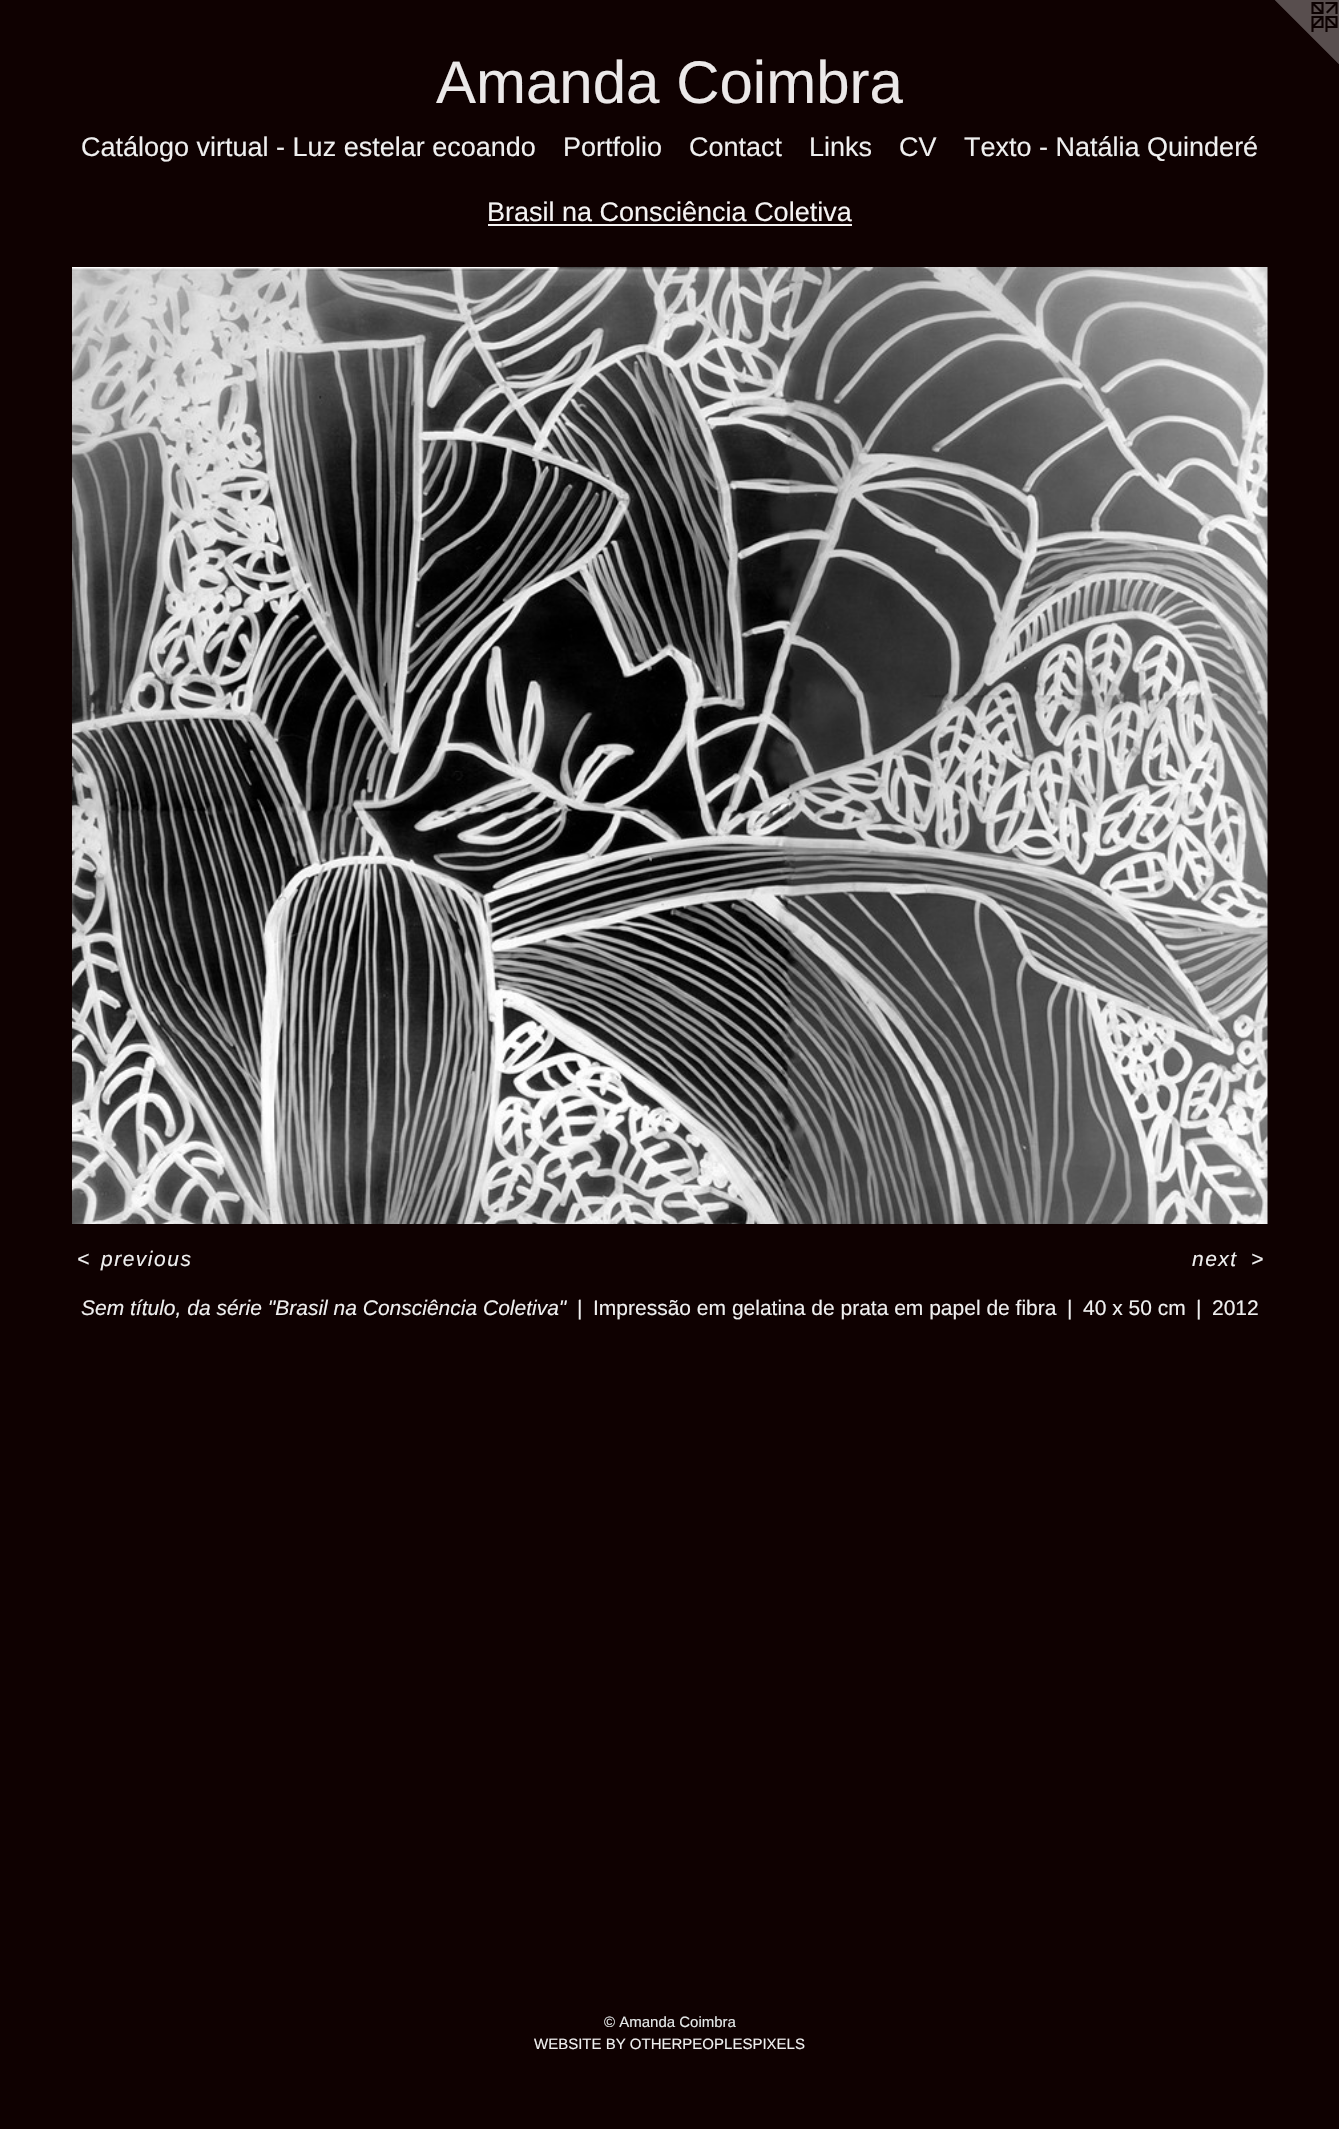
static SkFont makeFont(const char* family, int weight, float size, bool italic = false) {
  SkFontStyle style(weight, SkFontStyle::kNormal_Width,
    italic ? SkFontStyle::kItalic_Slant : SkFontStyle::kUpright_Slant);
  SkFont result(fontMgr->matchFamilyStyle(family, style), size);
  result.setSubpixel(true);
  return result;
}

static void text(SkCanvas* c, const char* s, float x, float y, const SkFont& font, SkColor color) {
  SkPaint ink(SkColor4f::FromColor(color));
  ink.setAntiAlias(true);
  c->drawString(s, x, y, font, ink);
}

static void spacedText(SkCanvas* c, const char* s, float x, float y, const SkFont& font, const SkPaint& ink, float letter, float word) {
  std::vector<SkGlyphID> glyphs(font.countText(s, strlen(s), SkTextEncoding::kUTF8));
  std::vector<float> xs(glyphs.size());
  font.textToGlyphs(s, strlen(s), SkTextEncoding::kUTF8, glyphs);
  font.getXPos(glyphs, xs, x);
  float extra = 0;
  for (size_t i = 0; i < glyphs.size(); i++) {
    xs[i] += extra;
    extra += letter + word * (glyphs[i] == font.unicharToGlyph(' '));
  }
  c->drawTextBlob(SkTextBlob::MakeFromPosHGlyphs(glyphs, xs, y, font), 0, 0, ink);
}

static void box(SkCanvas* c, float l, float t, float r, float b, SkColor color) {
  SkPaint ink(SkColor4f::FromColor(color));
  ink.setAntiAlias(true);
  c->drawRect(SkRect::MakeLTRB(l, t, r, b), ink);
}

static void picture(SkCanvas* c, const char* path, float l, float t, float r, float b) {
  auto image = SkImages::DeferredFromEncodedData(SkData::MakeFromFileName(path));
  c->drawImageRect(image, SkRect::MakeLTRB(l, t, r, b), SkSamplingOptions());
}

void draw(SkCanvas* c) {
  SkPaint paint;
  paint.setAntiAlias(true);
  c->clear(0xff0f0101);
  picture(c, "img_01.png", 1275, 0, 1339, 64);
  SkFont face1 = makeFont("Liberation Sans", 400, 60);
  text(c, "Amanda Coimbra", 436, 103, face1, 0xffebe8e8);
  SkFont face2 = makeFont("Liberation Sans", 400, 27);
  text(c, "Catálogo virtual - Luz estelar ecoando", 81, 156, face2, 0xffefefef);
  text(c, "Portfolio", 563, 156, face2, 0xffefefef);
  text(c, "Contact", 689, 156, face2, 0xffefefef);
  text(c, "Links", 809, 156, face2, 0xffefefef);
  text(c, "CV", 899, 156, face2, 0xffefefef);
  text(c, "Texto - Natália Quinderé", 964, 156, face2, 0xffefefef);
  text(c, "Brasil na Consciência Coletiva", 487, 221, face2, 0xfff5f3f3);
  box(c, 488, 224, 852, 226, 0xfff5f3f3);
  picture(c, "img_02.png", 72, 267, 1268, 1224);
  SkFont face3 = makeFont("Liberation Sans", 400, 21, true);
  paint.setColor(0xffefefef);
  spacedText(c, "<", 77, 1266, face3, paint, 1.5f, 0);
  spacedText(c, "previous", 101, 1266, face3, paint, 1.5f, 0);
  spacedText(c, "next", 1192, 1266, face3, paint, 1.5f, 0);
  spacedText(c, ">", 1251, 1266, face3, paint, 1.5f, 0);
  text(c, "Sem título, da série \"Brasil na Consciência Coletiva\"", 81, 1315, face3, 0xffefefef);
  SkFont face4 = makeFont("Liberation Sans", 400, 21);
  text(c, "|", 577, 1315, face4, 0xffefefef);
  text(c, "Impressão em gelatina de prata em papel de fibra", 593, 1315, face4, 0xffefefef);
  text(c, "|", 1067, 1315, face4, 0xffefefef);
  text(c, "40 x 50 cm", 1083, 1315, face4, 0xffefefef);
  text(c, "|", 1196, 1315, face4, 0xffefefef);
  text(c, "2012", 1212, 1315, face4, 0xffefefef);
  SkFont face5 = makeFont("Liberation Sans", 400, 15);
  text(c, "© Amanda Coimbra", 604, 2027, face5, 0xffe5e9e9);
  text(c, "WEBSITE BY OTHERPEOPLESPIXELS", 534, 2049, face5, 0xffefefef);
}
